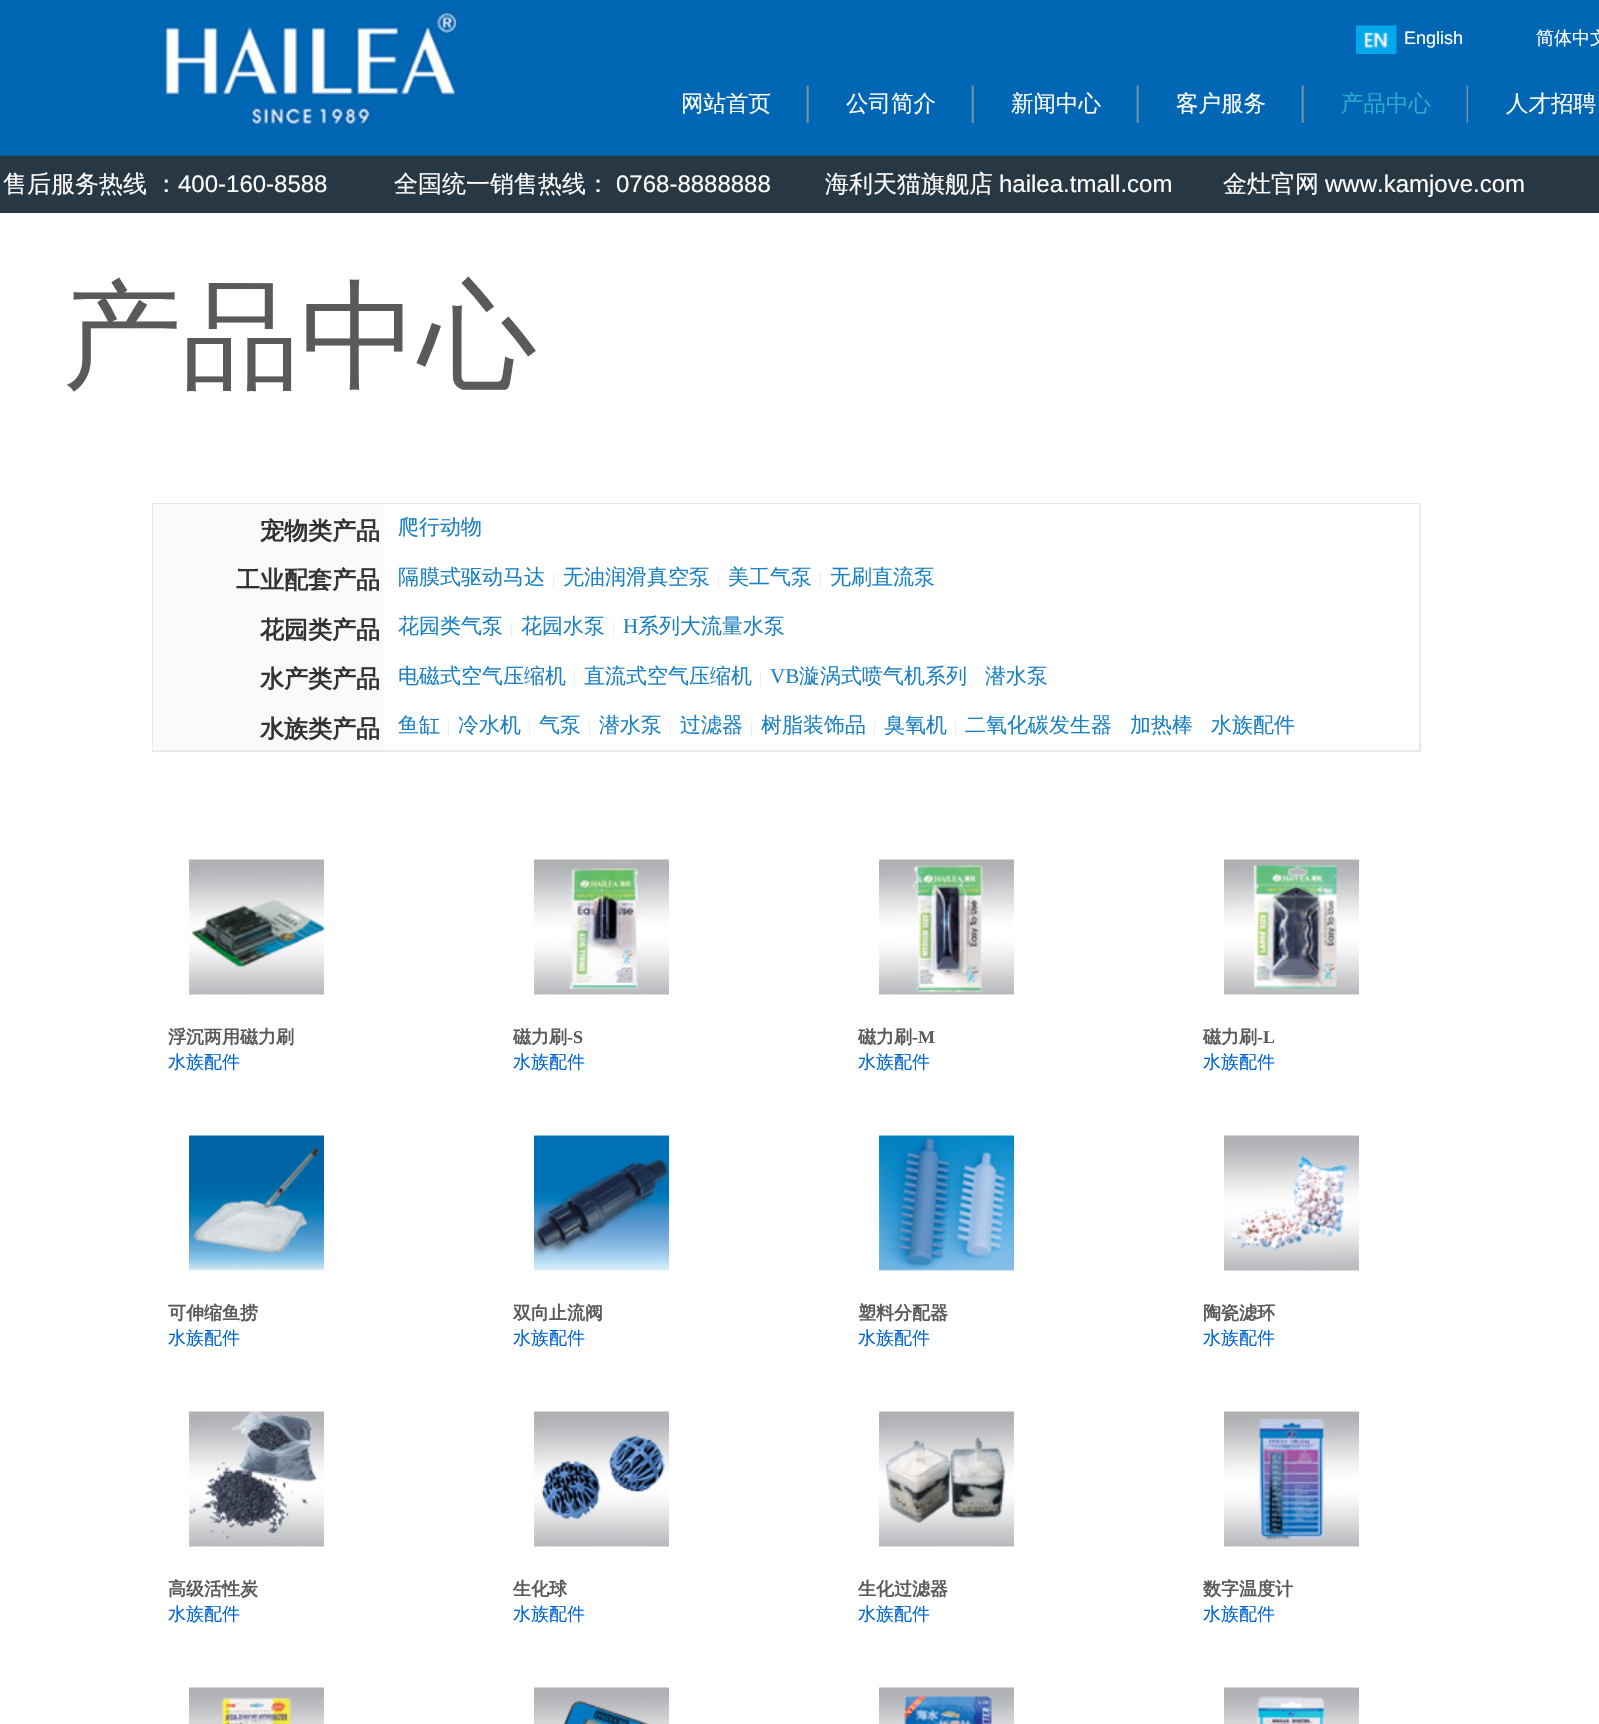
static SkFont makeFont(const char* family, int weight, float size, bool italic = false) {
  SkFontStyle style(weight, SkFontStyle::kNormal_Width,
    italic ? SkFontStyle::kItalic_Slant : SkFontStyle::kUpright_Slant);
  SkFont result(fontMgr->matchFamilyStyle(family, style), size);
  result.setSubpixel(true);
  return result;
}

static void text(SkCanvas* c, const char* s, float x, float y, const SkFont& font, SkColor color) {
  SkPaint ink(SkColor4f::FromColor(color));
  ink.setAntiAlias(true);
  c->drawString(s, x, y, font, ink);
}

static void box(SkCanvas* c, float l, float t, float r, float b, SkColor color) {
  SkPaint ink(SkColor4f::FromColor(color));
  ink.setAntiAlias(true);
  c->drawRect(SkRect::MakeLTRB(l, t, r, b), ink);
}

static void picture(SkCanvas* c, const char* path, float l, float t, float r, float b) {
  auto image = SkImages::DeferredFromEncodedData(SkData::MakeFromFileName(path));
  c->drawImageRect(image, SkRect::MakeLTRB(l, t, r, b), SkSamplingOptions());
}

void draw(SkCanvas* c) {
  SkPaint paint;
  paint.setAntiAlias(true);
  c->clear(0xffffffff);
  box(c, 0, 0, 1599, 154, 0xff0166b4);
  picture(c, "img_01.png", 0, 154, 1599, 213);
  picture(c, "img_02.png", 164, 8, 458, 128);
  picture(c, "img_03.png", 1356, 25, 1397, 54);
  SkFont face1 = makeFont("Liberation Sans", 400, 18);
  text(c, "English", 1404, 44, face1, 0xffffffff);
  SkFont face2 = makeFont("WenQuanYi Zen Hei", 500, 18);
  text(c, "简体中文", 1536, 44, face2, 0xffffffff);
  picture(c, "img_04.png", 806, 85, 809, 123);
  SkFont face3 = makeFont("WenQuanYi Zen Hei", 500, 22.5f);
  text(c, "网站首页", 681, 111, face3, 0xffffffff);
  picture(c, "img_04.png", 971, 85, 974, 123);
  text(c, "公司简介", 846, 111, face3, 0xffffffff);
  picture(c, "img_04.png", 1136, 85, 1139, 123);
  text(c, "新闻中心", 1011, 111, face3, 0xffffffff);
  picture(c, "img_04.png", 1301, 85, 1304, 123);
  text(c, "客户服务", 1176, 111, face3, 0xffffffff);
  picture(c, "img_05.png", 1466, 85, 1468, 123);
  text(c, "产品中心", 1341, 111, face3, 0xff2babcf);
  text(c, "人才招聘", 1506, 111, face3, 0xffffffff);
  SkFont face4 = makeFont("WenQuanYi Zen Hei", 500, 24);
  text(c, "售后服务热线 ：", 3, 192, face4, 0xffffffff);
  SkFont face5 = makeFont("Liberation Sans", 400, 24);
  text(c, "400-160-8588", 178, 192, face5, 0xffffffff);
  text(c, "全国统一销售热线：", 394, 192, face4, 0xffffffff);
  text(c, "0768-8888888", 616, 192, face5, 0xffffffff);
  text(c, "海利天猫旗舰店", 825, 192, face4, 0xffffffff);
  text(c, "hailea.tmall.com", 999, 192, face5, 0xffffffff);
  text(c, "金灶官网", 1223, 192, face4, 0xffffffff);
  text(c, "www.kamjove.com", 1325, 192, face5, 0xffffffff);
  SkFont face6 = makeFont("WenQuanYi Zen Hei", 500, 118.5f);
  text(c, "产品中心", 63, 377, face6, 0xff5a5a5a);
  paint.setStyle(SkPaint::kStroke_Style);
  paint.setStrokeWidth(2);
  paint.setColor(0xffe9e9e9);
  c->drawRect(SkRect::MakeLTRB(153, 504, 1420, 751), paint);
  box(c, 153, 504, 383, 750, 0xfffafafa);
  SkFont face7 = makeFont("WenQuanYi Zen Hei", 700, 24);
  text(c, "宠物类产品", 260, 539, face7, 0xff333333);
  box(c, 383, 504, 1419, 505, 0xffffffff);
  SkFont face8 = makeFont("WenQuanYi Zen Hei", 500, 21);
  text(c, "爬行动物", 398, 534, face8, 0xff1b81c4);
  text(c, "工业配套产品", 236, 588, face7, 0xff333333);
  text(c, "隔膜式驱动马达", 398, 584, face8, 0xff1b81c4);
  SkFont face9 = makeFont("Liberation Serif", 400, 15);
  text(c, "|", 552, 584, face9, 0xffe9e9e9);
  text(c, "无油润滑真空泵", 563, 584, face8, 0xff1b81c4);
  text(c, "|", 717, 584, face9, 0xffe9e9e9);
  text(c, "美工气泵", 728, 584, face8, 0xff1b81c4);
  text(c, "|", 819, 584, face9, 0xffe9e9e9);
  text(c, "无刷直流泵", 830, 584, face8, 0xff1b81c4);
  text(c, "花园类产品", 260, 638, face7, 0xff333333);
  text(c, "花园类气泵", 398, 633, face8, 0xff1b81c4);
  text(c, "|", 510, 633, face9, 0xffe9e9e9);
  text(c, "花园水泵", 521, 633, face8, 0xff1b81c4);
  text(c, "|", 612, 633, face9, 0xffe9e9e9);
  SkFont face10 = makeFont("Liberation Serif", 400, 21);
  text(c, "H", 623, 633, face10, 0xff1b81c4);
  text(c, "系列大流量水泵", 638, 633, face8, 0xff1b81c4);
  text(c, "水产类产品", 260, 687, face7, 0xff333333);
  text(c, "电磁式空气压缩机", 398, 683, face8, 0xff1b81c4);
  text(c, "|", 573, 683, face9, 0xffe9e9e9);
  text(c, "直流式空气压缩机", 584, 683, face8, 0xff1b81c4);
  text(c, "|", 759, 683, face9, 0xffe9e9e9);
  text(c, "VB", 770, 683, face10, 0xff1b81c4);
  text(c, "漩涡式喷气机系列", 799, 683, face8, 0xff1b81c4);
  text(c, "潜水泵", 985, 683, face8, 0xff1b81c4);
  text(c, "水族类产品", 260, 737, face7, 0xff333333);
  text(c, "鱼缸", 398, 732, face8, 0xff1b81c4);
  text(c, "|", 447, 732, face9, 0xffe9e9e9);
  text(c, "冷水机", 458, 732, face8, 0xff1b81c4);
  text(c, "|", 528, 732, face9, 0xffe9e9e9);
  text(c, "气泵", 539, 732, face8, 0xff1b81c4);
  text(c, "|", 588, 732, face9, 0xffe9e9e9);
  text(c, "潜水泵", 599, 732, face8, 0xff1b81c4);
  text(c, "|", 669, 732, face9, 0xffe9e9e9);
  text(c, "过滤器", 680, 732, face8, 0xff1b81c4);
  text(c, "|", 750, 732, face9, 0xffe9e9e9);
  text(c, "树脂装饰品", 761, 732, face8, 0xff1b81c4);
  text(c, "|", 873, 732, face9, 0xffe9e9e9);
  text(c, "臭氧机", 884, 732, face8, 0xff1b81c4);
  text(c, "|", 954, 732, face9, 0xffe9e9e9);
  text(c, "二氧化碳发生器", 965, 732, face8, 0xff1b81c4);
  text(c, "加热棒", 1130, 732, face8, 0xff1b81c4);
  text(c, "水族配件", 1211, 732, face8, 0xff1b81c4);
  picture(c, "img_06.png", 189, 859, 324, 995);
  SkFont face11 = makeFont("WenQuanYi Zen Hei", 700, 18);
  text(c, "浮沉两用磁力刷", 168, 1043, face11, 0xff5a5a5a);
  text(c, "水族配件", 168, 1068, face2, 0xff0064d4);
  picture(c, "img_07.png", 534, 859, 669, 995);
  text(c, "磁力刷", 513, 1043, face11, 0xff5a5a5a);
  SkFont face12 = makeFont("Liberation Serif", 700, 18);
  text(c, "-S", 567, 1043, face12, 0xff5a5a5a);
  text(c, "水族配件", 513, 1068, face2, 0xff0064d4);
  picture(c, "img_08.png", 879, 859, 1014, 995);
  text(c, "磁力刷", 858, 1043, face11, 0xff5a5a5a);
  text(c, "-M", 912, 1043, face12, 0xff5a5a5a);
  text(c, "水族配件", 858, 1068, face2, 0xff0064d4);
  picture(c, "img_09.png", 1224, 859, 1359, 995);
  text(c, "磁力刷", 1203, 1043, face11, 0xff5a5a5a);
  text(c, "-L", 1257, 1043, face12, 0xff5a5a5a);
  text(c, "水族配件", 1203, 1068, face2, 0xff0064d4);
  picture(c, "img_10.png", 189, 1135, 324, 1271);
  text(c, "可伸缩鱼捞", 168, 1319, face11, 0xff5a5a5a);
  text(c, "水族配件", 168, 1344, face2, 0xff0064d4);
  picture(c, "img_11.png", 534, 1135, 669, 1271);
  text(c, "双向止流阀", 513, 1319, face11, 0xff5a5a5a);
  text(c, "水族配件", 513, 1344, face2, 0xff0064d4);
  picture(c, "img_12.png", 879, 1135, 1014, 1271);
  text(c, "塑料分配器", 858, 1319, face11, 0xff5a5a5a);
  text(c, "水族配件", 858, 1344, face2, 0xff0064d4);
  picture(c, "img_13.png", 1224, 1135, 1359, 1271);
  text(c, "陶瓷滤环", 1203, 1319, face11, 0xff5a5a5a);
  text(c, "水族配件", 1203, 1344, face2, 0xff0064d4);
  picture(c, "img_14.png", 189, 1411, 324, 1547);
  text(c, "高级活性炭", 168, 1595, face11, 0xff5a5a5a);
  text(c, "水族配件", 168, 1620, face2, 0xff0064d4);
  picture(c, "img_15.png", 534, 1411, 669, 1547);
  text(c, "生化球", 513, 1595, face11, 0xff5a5a5a);
  text(c, "水族配件", 513, 1620, face2, 0xff0064d4);
  picture(c, "img_16.png", 879, 1411, 1014, 1547);
  text(c, "生化过滤器", 858, 1595, face11, 0xff5a5a5a);
  text(c, "水族配件", 858, 1620, face2, 0xff0064d4);
  picture(c, "img_17.png", 1224, 1411, 1359, 1547);
  text(c, "数字温度计", 1203, 1595, face11, 0xff5a5a5a);
  text(c, "水族配件", 1203, 1620, face2, 0xff0064d4);
  picture(c, "img_18.png", 189, 1687, 324, 1724);
  picture(c, "img_19.png", 534, 1687, 669, 1724);
  picture(c, "img_20.png", 879, 1687, 1014, 1724);
  picture(c, "img_21.png", 1224, 1687, 1359, 1724);
}
